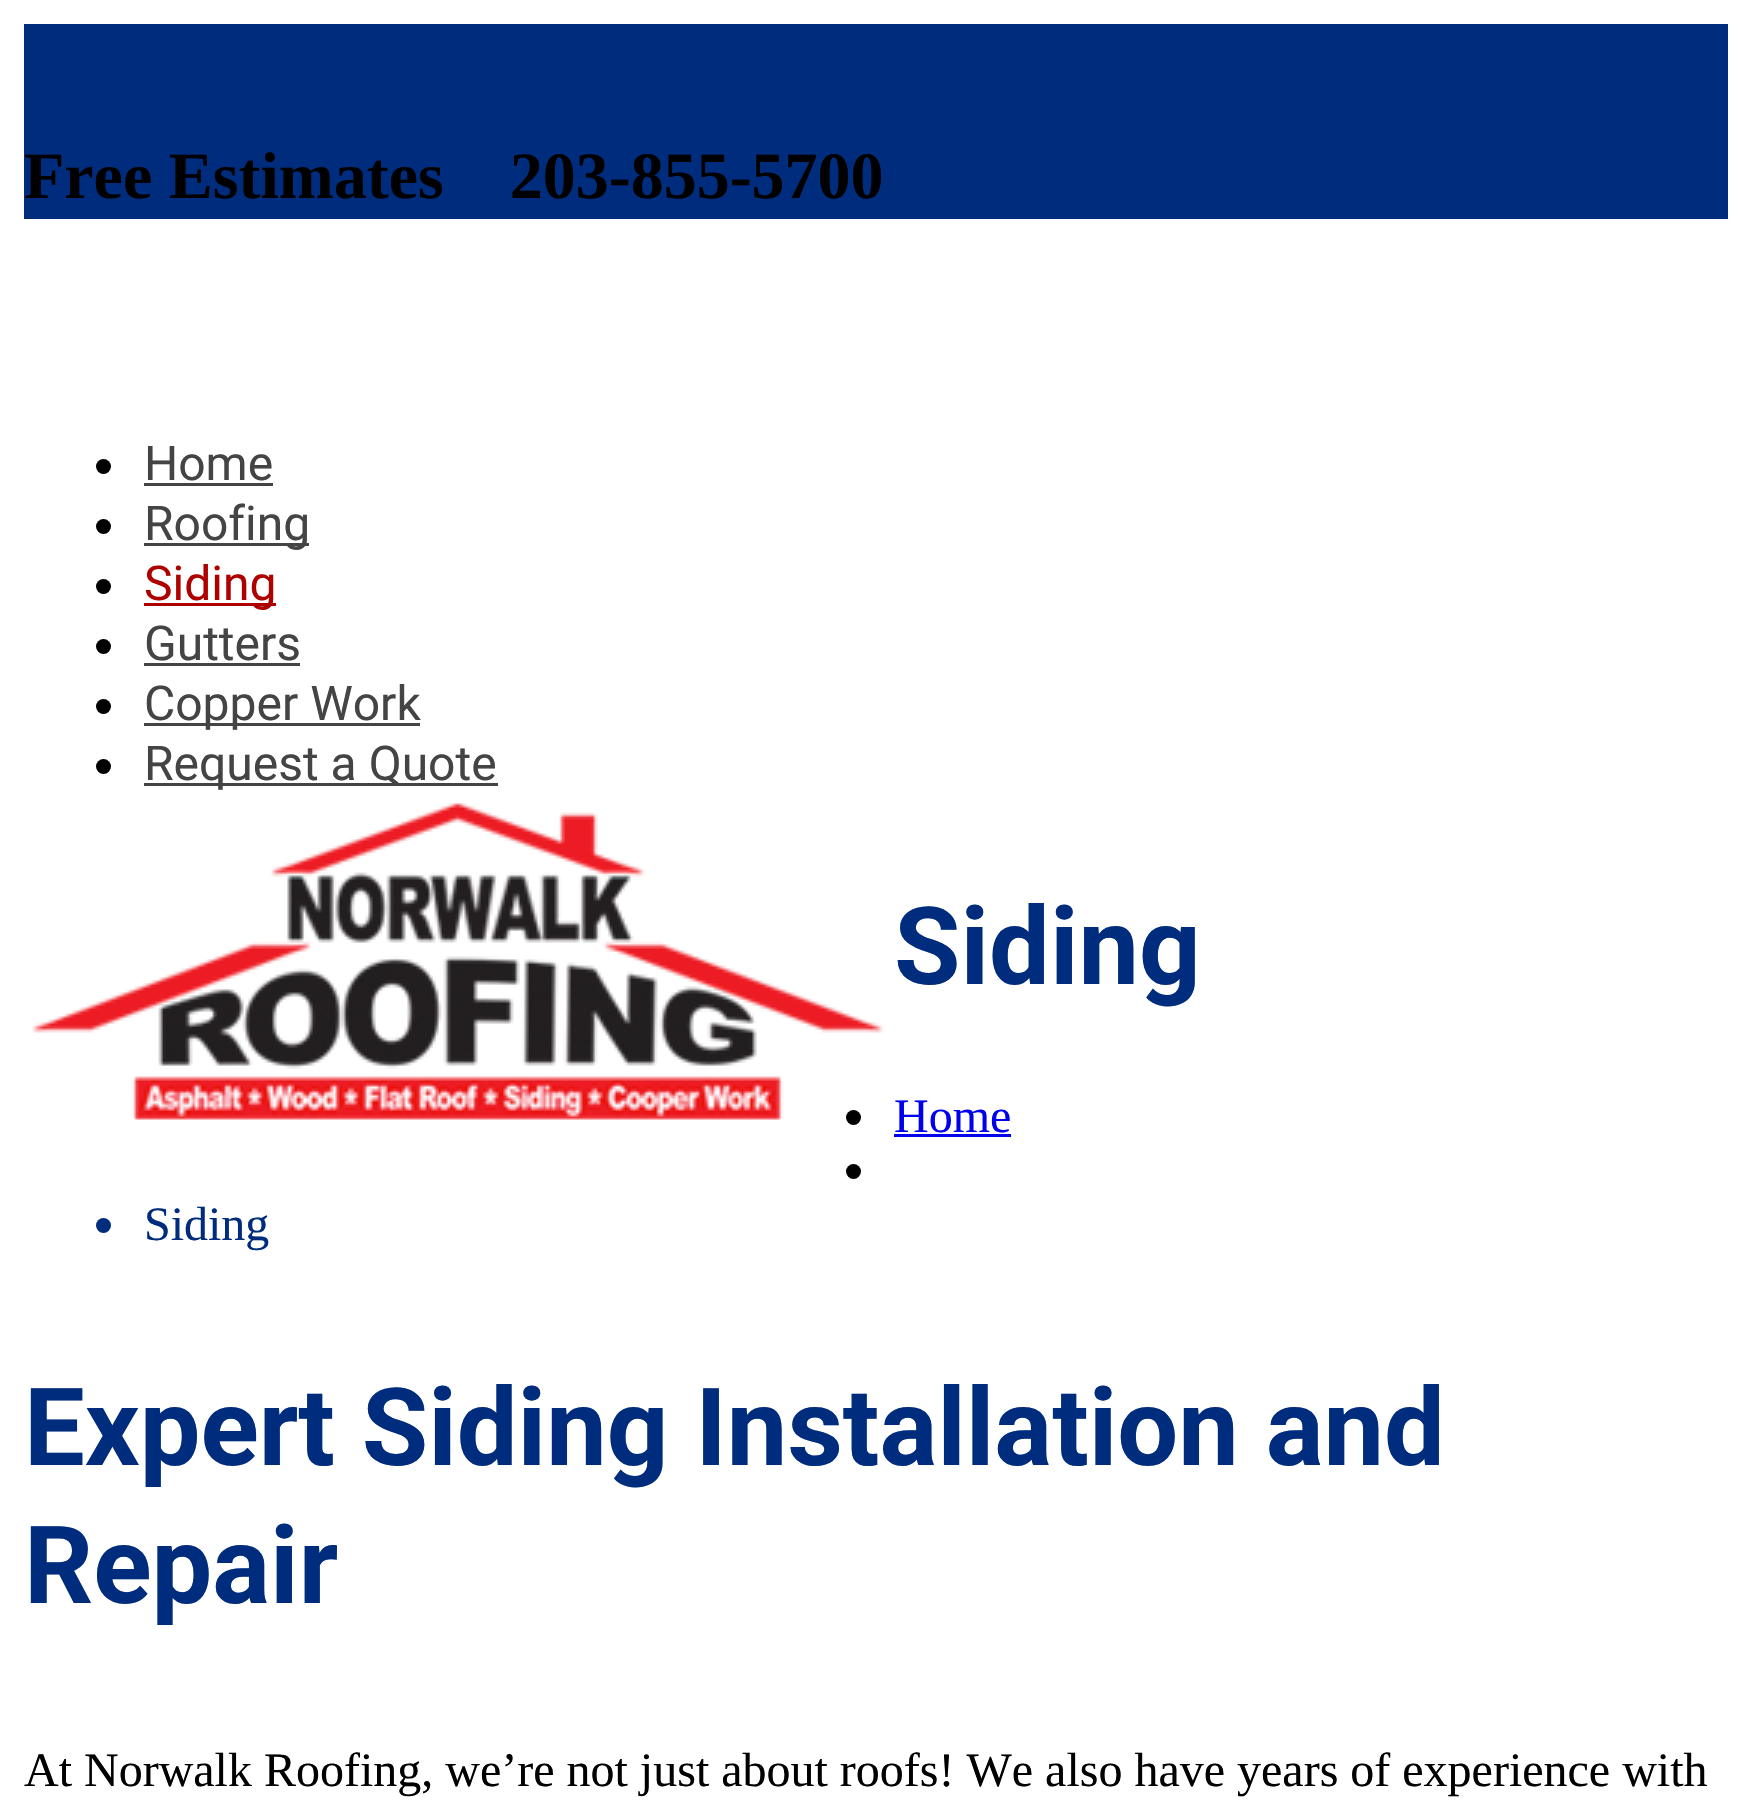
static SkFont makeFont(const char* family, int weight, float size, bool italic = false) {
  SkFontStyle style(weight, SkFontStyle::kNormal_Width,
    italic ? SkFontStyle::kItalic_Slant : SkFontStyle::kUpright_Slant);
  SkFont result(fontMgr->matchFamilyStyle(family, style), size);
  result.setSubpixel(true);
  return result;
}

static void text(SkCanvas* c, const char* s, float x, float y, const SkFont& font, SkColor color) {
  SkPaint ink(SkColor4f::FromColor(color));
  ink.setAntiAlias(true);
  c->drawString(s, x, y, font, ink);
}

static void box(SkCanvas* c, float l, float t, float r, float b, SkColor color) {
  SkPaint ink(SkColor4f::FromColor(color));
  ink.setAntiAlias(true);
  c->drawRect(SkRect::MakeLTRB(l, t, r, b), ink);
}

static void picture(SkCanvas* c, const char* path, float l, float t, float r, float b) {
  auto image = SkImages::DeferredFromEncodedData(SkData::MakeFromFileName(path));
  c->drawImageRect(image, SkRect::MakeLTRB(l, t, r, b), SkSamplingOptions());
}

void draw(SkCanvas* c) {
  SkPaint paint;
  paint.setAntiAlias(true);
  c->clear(0xffffffff);
  box(c, 24, 24, 1728, 219, 0xff002c7d);
  SkFont face1 = makeFont("Liberation Serif", 700, 66);
  text(c, "Free Estimates    203-855-5700", 24, 198, face1, 0xff000000);
  paint.setColor(0xff000000);
  c->drawCircle(103.5f, 466.5f, 7.5f, paint);
  SkFont face2 = makeFont("Roboto", 400, 48);
  text(c, "Home", 144, 480, face2, 0xff444444);
  box(c, 144, 483, 273, 486, 0xff444444);
  c->drawCircle(103.5f, 526.5f, 7.5f, paint);
  box(c, 144, 543, 309, 546, 0xff444444);
  text(c, "Roofing", 144, 540, face2, 0xff444444);
  c->drawCircle(103.5f, 586.5f, 7.5f, paint);
  box(c, 144, 603, 276, 606, 0xffaf0000);
  text(c, "Siding", 144, 600, face2, 0xffaf0000);
  c->drawCircle(103.5f, 646.5f, 7.5f, paint);
  text(c, "Gutters", 144, 660, face2, 0xff444444);
  box(c, 144, 663, 300, 666, 0xff444444);
  c->drawCircle(103.5f, 706.5f, 7.5f, paint);
  box(c, 144, 723, 420, 726, 0xff444444);
  text(c, "Copper Work", 144, 720, face2, 0xff444444);
  c->drawCircle(103.5f, 766.5f, 7.5f, paint);
  box(c, 144, 783, 498, 786, 0xff444444);
  text(c, "Request a Quote", 144, 780, face2, 0xff444444);
  picture(c, "img_01.png", 32, 803, 883, 1120);
  SkFont face3 = makeFont("Roboto", 700, 108);
  text(c, "Siding", 894, 984, face3, 0xff002c7d);
  c->drawCircle(853.5f, 1117.5f, 7.5f, paint);
  SkFont face4 = makeFont("Liberation Serif", 400, 48);
  text(c, "Home", 894, 1132, face4, 0xff0000ee);
  box(c, 894, 1134, 1011, 1137, 0xff0000ee);
  c->drawCircle(853.5f, 1171.5f, 7.5f, paint);
  paint.setColor(0xff002c7d);
  c->drawCircle(103.5f, 1225.5f, 7.5f, paint);
  text(c, "Siding", 144, 1240, face4, 0xff002c7d);
  text(c, "Expert Siding Installation and", 24, 1465, face3, 0xff002c7d);
  text(c, "Repair", 24, 1603, face3, 0xff002c7d);
  text(c, "At Norwalk Roofing, we’re not just about roofs! We also have years of experience with", 24, 1786, face4, 0xff000000);
}
